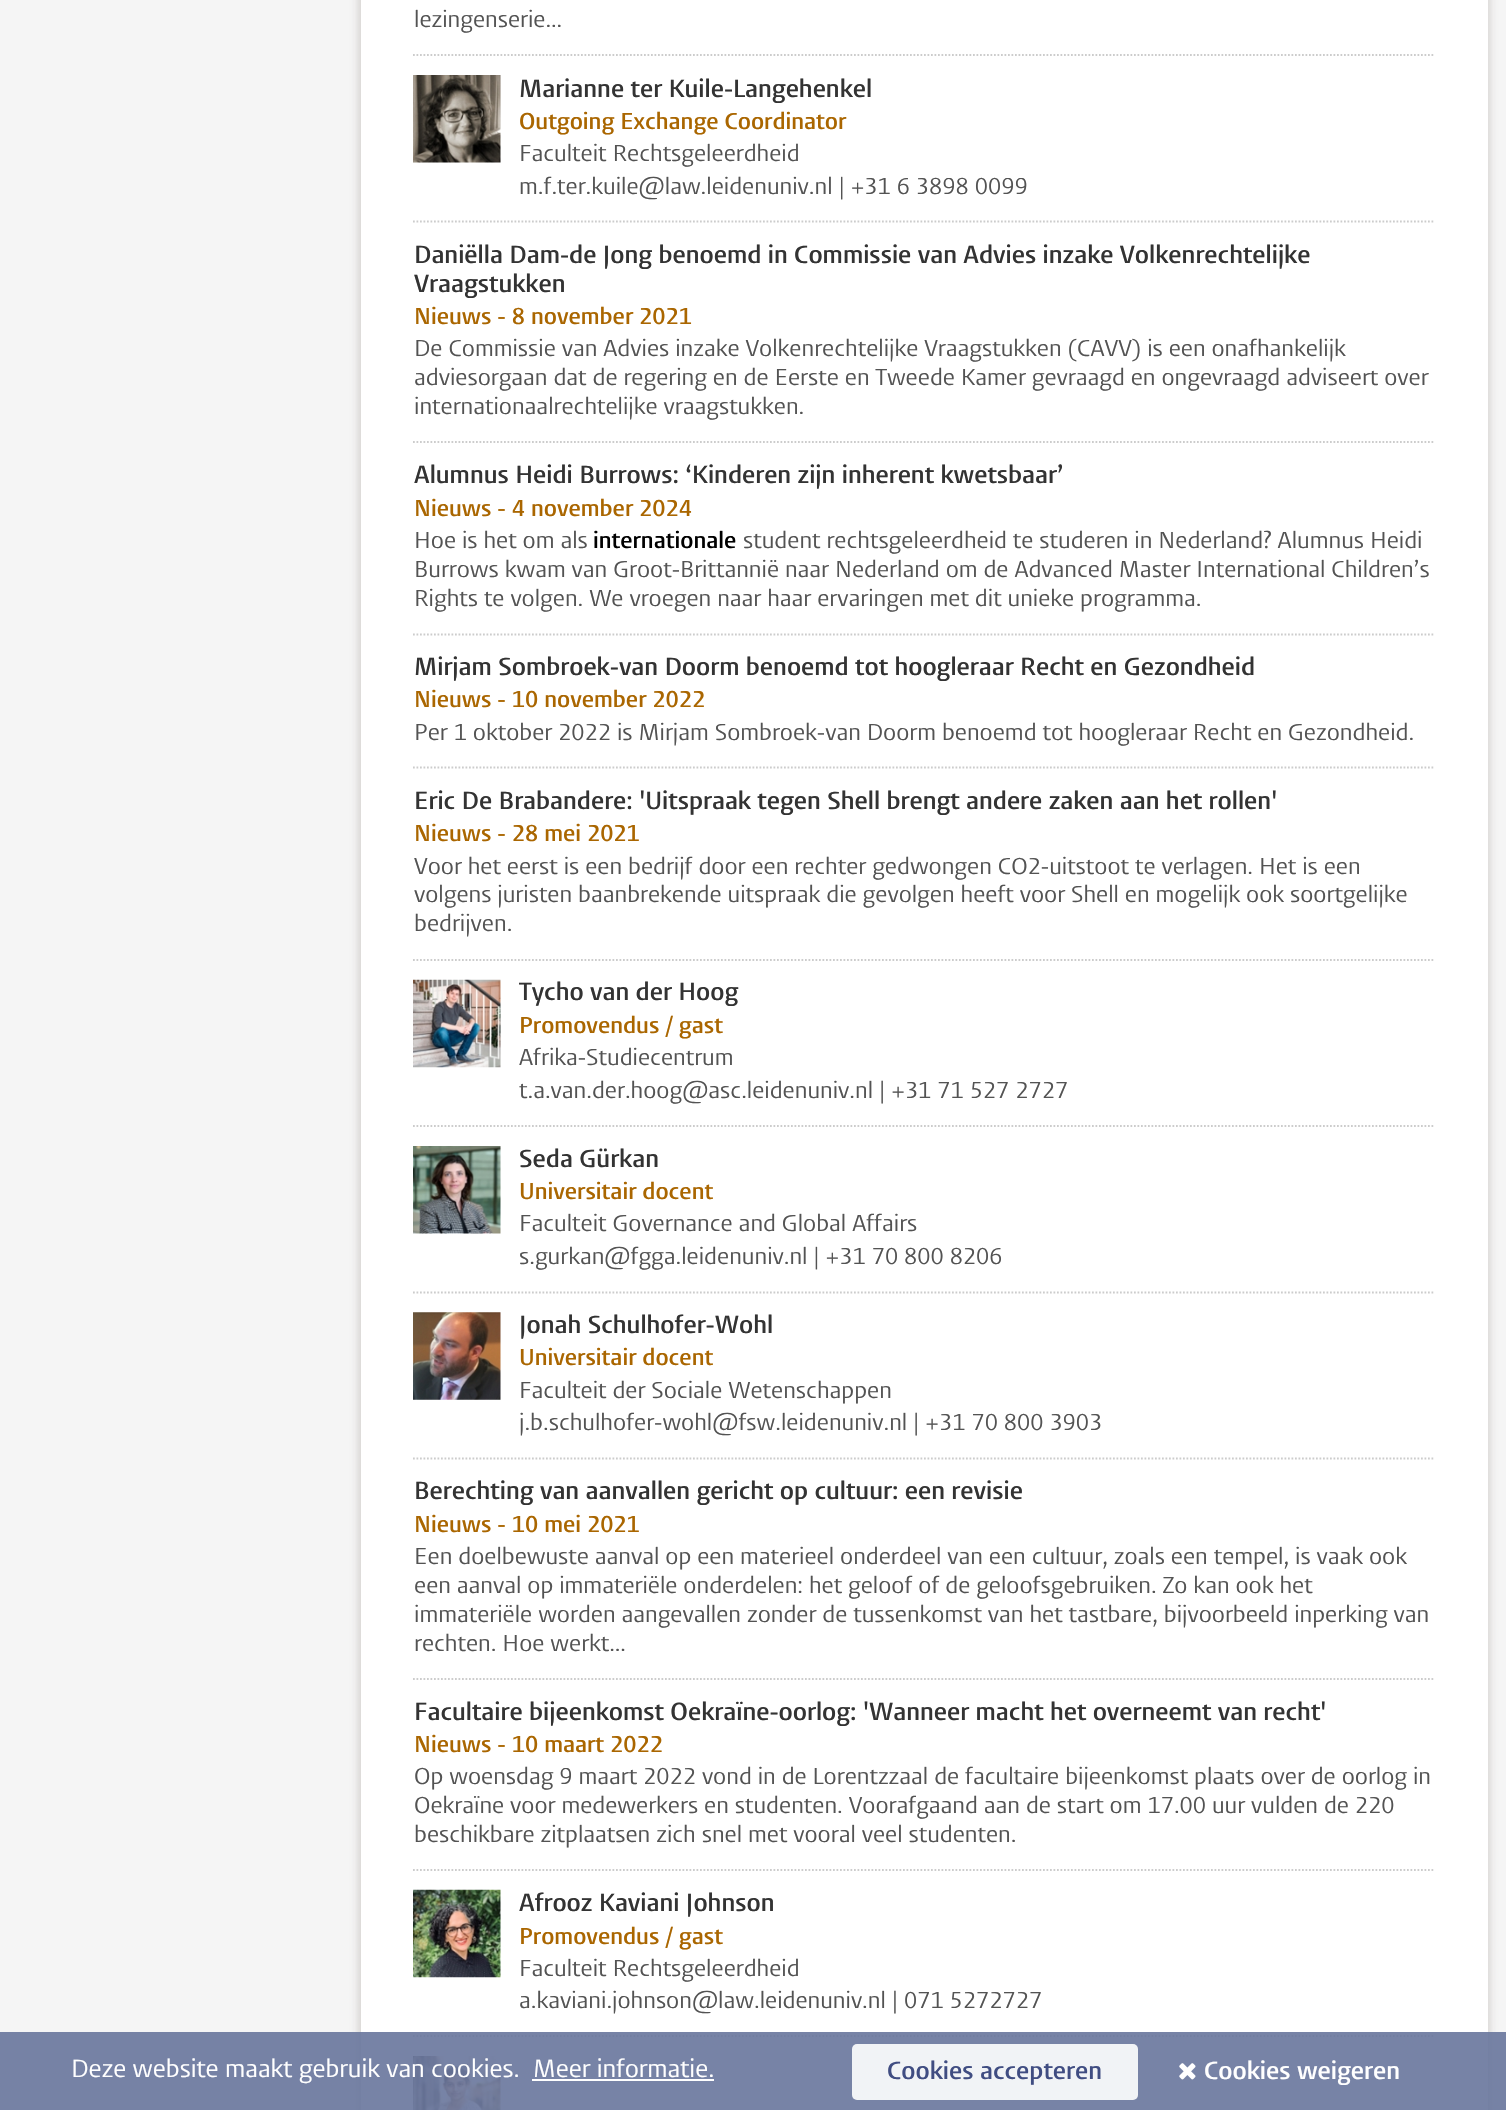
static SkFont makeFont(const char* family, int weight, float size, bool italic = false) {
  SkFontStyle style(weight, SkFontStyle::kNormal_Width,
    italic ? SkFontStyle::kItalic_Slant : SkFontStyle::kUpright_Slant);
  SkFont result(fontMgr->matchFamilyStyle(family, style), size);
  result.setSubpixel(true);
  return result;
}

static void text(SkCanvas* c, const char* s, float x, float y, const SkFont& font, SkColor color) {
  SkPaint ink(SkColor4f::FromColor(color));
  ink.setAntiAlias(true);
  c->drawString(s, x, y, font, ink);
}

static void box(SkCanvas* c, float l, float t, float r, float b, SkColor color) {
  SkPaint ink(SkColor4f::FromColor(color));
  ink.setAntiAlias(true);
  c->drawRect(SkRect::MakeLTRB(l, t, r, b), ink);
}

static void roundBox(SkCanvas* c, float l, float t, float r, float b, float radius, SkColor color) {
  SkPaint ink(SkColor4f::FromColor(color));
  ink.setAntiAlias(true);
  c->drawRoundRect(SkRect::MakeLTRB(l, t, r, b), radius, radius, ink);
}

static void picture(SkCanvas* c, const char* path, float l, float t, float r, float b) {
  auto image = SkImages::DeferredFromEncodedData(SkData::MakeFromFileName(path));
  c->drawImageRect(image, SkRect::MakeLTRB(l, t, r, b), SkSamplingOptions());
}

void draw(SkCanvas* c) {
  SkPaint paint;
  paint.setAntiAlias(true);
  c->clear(0xfff5f5f5);
  paint.setColor(0x4d786e64);
  paint.setMaskFilter(SkMaskFilter::MakeBlur(kNormal_SkBlurStyle, 4.5f));
  c->drawRect(SkRect::MakeLTRB(359, -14, 1489, 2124), paint);
  paint.setMaskFilter(nullptr);
  box(c, 361, 0, 1488, 2110, 0xffffffff);
  paint.setStyle(SkPaint::kStroke_Style);
  paint.setStrokeWidth(1.8f);
  paint.setColor(0xffcccccc);
  paint.setPathEffect(SkDashPathEffect::Make({{1.75f, 1.75f}}, 0));
  c->drawPath(SkPathBuilder().moveTo(413, 55).lineTo(1435, 55).detach(), paint);
  paint.setPathEffect(nullptr);
  SkFont face1 = makeFont("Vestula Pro", 400, 22.75f);
  text(c, "lezingenserie…", 414, 27, face1, 0xff535353);
  paint.setPathEffect(SkDashPathEffect::Make({{1.75f, 1.75f}}, 0));
  c->drawPath(SkPathBuilder().moveTo(413, 221.5f).lineTo(1435, 221.5f).detach(), paint);
  paint.setPathEffect(nullptr);
  picture(c, "img_01.png", 413, 75, 501, 163);
  SkFont face2 = makeFont("Vestula Pro", 600, 24.5f);
  text(c, "Marianne ter Kuile-Langehenkel", 519, 97, face2, 0xff333333);
  SkFont face3 = makeFont("Vestula Pro", 600, 22.75f);
  text(c, "Outgoing Exchange Coordinator", 519, 129, face3, 0xffaa6600);
  text(c, "Faculteit Rechtsgeleerdheid", 519, 161, face1, 0xff535353);
  text(c, "m.f.ter.kuile@law.leidenuniv.nl | +31 6 3898 0099", 519, 194, face1, 0xff535353);
  paint.setPathEffect(SkDashPathEffect::Make({{1.75f, 1.75f}}, 0));
  c->drawPath(SkPathBuilder().moveTo(413, 442).lineTo(1435, 442).detach(), paint);
  paint.setPathEffect(nullptr);
  text(c, "Daniëlla Dam-de Jong benoemd in Commissie van Advies inzake Volkenrechtelijke", 414, 263, face2, 0xff333333);
  text(c, "Vraagstukken", 414, 292, face2, 0xff333333);
  text(c, "Nieuws - 8 november 2021", 414, 324, face3, 0xffaa6600);
  text(c, "De Commissie van Advies inzake Volkenrechtelijke Vraagstukken (CAVV) is een onafhankelijk", 414, 356, face1, 0xff535353);
  text(c, "adviesorgaan dat de regering en de Eerste en Tweede Kamer gevraagd en ongevraagd adviseert over", 414, 385, face1, 0xff535353);
  text(c, "internationaalrechtelijke vraagstukken.", 414, 414, face1, 0xff535353);
  paint.setPathEffect(SkDashPathEffect::Make({{1.75f, 1.75f}}, 0));
  c->drawPath(SkPathBuilder().moveTo(413, 634.5f).lineTo(1435, 634.5f).detach(), paint);
  paint.setPathEffect(nullptr);
  text(c, "Alumnus Heidi Burrows: ‘Kinderen zijn inherent kwetsbaar’", 414, 483, face2, 0xff333333);
  text(c, "Nieuws - 4 november 2024", 414, 516, face3, 0xffaa6600);
  text(c, "Hoe is het om als", 414, 548, face1, 0xff535353);
  text(c, "internationale", 593, 548, face3, 0xff000000);
  text(c, "student rechtsgeleerdheid te studeren in Nederland? Alumnus Heidi", 743, 548, face1, 0xff535353);
  text(c, "Burrows kwam van Groot-Brittannië naar Nederland om de Advanced Master International Children’s", 414, 577, face1, 0xff535353);
  text(c, "Rights te volgen. We vroegen naar haar ervaringen met dit unieke programma.", 414, 606, face1, 0xff535353);
  paint.setPathEffect(SkDashPathEffect::Make({{1.75f, 1.75f}}, 0));
  c->drawPath(SkPathBuilder().moveTo(413, 767.5f).lineTo(1435, 767.5f).detach(), paint);
  paint.setPathEffect(nullptr);
  text(c, "Mirjam Sombroek-van Doorm benoemd tot hoogleraar Recht en Gezondheid", 414, 675, face2, 0xff333333);
  text(c, "Nieuws - 10 november 2022", 414, 707, face3, 0xffaa6600);
  text(c, "Per 1 oktober 2022 is Mirjam Sombroek-van Doorm benoemd tot hoogleraar Recht en Gezondheid.", 414, 740, face1, 0xff535353);
  paint.setPathEffect(SkDashPathEffect::Make({{1.75f, 1.75f}}, 0));
  c->drawPath(SkPathBuilder().moveTo(413, 960).lineTo(1435, 960).detach(), paint);
  paint.setPathEffect(nullptr);
  text(c, "Eric De Brabandere: 'Uitspraak tegen Shell brengt andere zaken aan het rollen'", 414, 809, face2, 0xff333333);
  text(c, "Nieuws - 28 mei 2021", 414, 841, face3, 0xffaa6600);
  text(c, "Voor het eerst is een bedrijf door een rechter gedwongen CO2-uitstoot te verlagen. Het is een", 414, 874, face1, 0xff535353);
  text(c, "volgens juristen baanbrekende uitspraak die gevolgen heeft voor Shell en mogelijk ook soortgelijke", 414, 902, face1, 0xff535353);
  text(c, "bedrijven.", 414, 931, face1, 0xff535353);
  paint.setPathEffect(SkDashPathEffect::Make({{1.75f, 1.75f}}, 0));
  c->drawPath(SkPathBuilder().moveTo(413, 1126).lineTo(1435, 1126).detach(), paint);
  paint.setPathEffect(nullptr);
  picture(c, "img_02.png", 413, 979, 501, 1068);
  text(c, "Tycho van der Hoog", 519, 1000, face2, 0xff333333);
  text(c, "Promovendus / gast", 519, 1033, face3, 0xffaa6600);
  text(c, "Afrika-Studiecentrum", 519, 1065, face1, 0xff535353);
  text(c, "t.a.van.der.hoog@asc.leidenuniv.nl | +31 71 527 2727", 519, 1098, face1, 0xff535353);
  paint.setPathEffect(SkDashPathEffect::Make({{1.75f, 1.75f}}, 0));
  c->drawPath(SkPathBuilder().moveTo(413, 1292.5f).lineTo(1435, 1292.5f).detach(), paint);
  paint.setPathEffect(nullptr);
  picture(c, "img_03.png", 413, 1146, 501, 1234);
  text(c, "Seda Gürkan", 519, 1167, face2, 0xff333333);
  text(c, "Universitair docent", 519, 1199, face3, 0xffaa6600);
  text(c, "Faculteit Governance and Global Affairs", 519, 1231, face1, 0xff535353);
  text(c, "s.gurkan@fgga.leidenuniv.nl | +31 70 800 8206", 519, 1264, face1, 0xff535353);
  paint.setPathEffect(SkDashPathEffect::Make({{1.75f, 1.75f}}, 0));
  c->drawPath(SkPathBuilder().moveTo(413, 1458.5f).lineTo(1435, 1458.5f).detach(), paint);
  paint.setPathEffect(nullptr);
  picture(c, "img_04.png", 413, 1312, 501, 1400);
  text(c, "Jonah Schulhofer-Wohl", 519, 1333, face2, 0xff333333);
  text(c, "Universitair docent", 519, 1365, face3, 0xffaa6600);
  text(c, "Faculteit der Sociale Wetenschappen", 519, 1398, face1, 0xff535353);
  text(c, "j.b.schulhofer-wohl@fsw.leidenuniv.nl | +31 70 800 3903", 519, 1430, face1, 0xff535353);
  paint.setPathEffect(SkDashPathEffect::Make({{1.75f, 1.75f}}, 0));
  c->drawPath(SkPathBuilder().moveTo(413, 1679).lineTo(1435, 1679).detach(), paint);
  paint.setPathEffect(nullptr);
  text(c, "Berechting van aanvallen gericht op cultuur: een revisie", 414, 1499, face2, 0xff333333);
  text(c, "Nieuws - 10 mei 2021", 414, 1532, face3, 0xffaa6600);
  text(c, "Een doelbewuste aanval op een materieel onderdeel van een cultuur, zoals een tempel, is vaak ook", 414, 1564, face1, 0xff535353);
  text(c, "een aanval op immateriële onderdelen: het geloof of de geloofsgebruiken. Zo kan ook het", 414, 1593, face1, 0xff535353);
  text(c, "immateriële worden aangevallen zonder de tussenkomst van het tastbare, bijvoorbeeld inperking van", 414, 1622, face1, 0xff535353);
  text(c, "rechten. Hoe werkt…", 414, 1651, face1, 0xff535353);
  paint.setPathEffect(SkDashPathEffect::Make({{1.75f, 1.75f}}, 0));
  c->drawPath(SkPathBuilder().moveTo(413, 1870).lineTo(1435, 1870).detach(), paint);
  paint.setPathEffect(nullptr);
  text(c, "Facultaire bijeenkomst Oekraïne-oorlog: 'Wanneer macht het overneemt van recht'", 414, 1720, face2, 0xff333333);
  text(c, "Nieuws - 10 maart 2022", 414, 1752, face3, 0xffaa6600);
  text(c, "Op woensdag 9 maart 2022 vond in de Lorentzzaal de facultaire bijeenkomst plaats over de oorlog in", 414, 1784, face1, 0xff535353);
  text(c, "Oekraïne voor medewerkers en studenten. Voorafgaand aan de start om 17.00 uur vulden de 220", 414, 1813, face1, 0xff535353);
  text(c, "beschikbare zitplaatsen zich snel met vooral veel studenten.", 414, 1842, face1, 0xff535353);
  paint.setPathEffect(SkDashPathEffect::Make({{1.75f, 1.75f}}, 0));
  c->drawPath(SkPathBuilder().moveTo(413, 2036).lineTo(1435, 2036).detach(), paint);
  paint.setPathEffect(nullptr);
  picture(c, "img_05.png", 413, 1889, 501, 1978);
  text(c, "Afrooz Kaviani Johnson", 519, 1911, face2, 0xff333333);
  text(c, "Promovendus / gast", 519, 1944, face3, 0xffaa6600);
  text(c, "Faculteit Rechtsgeleerdheid", 519, 1976, face1, 0xff535353);
  text(c, "a.kaviani.johnson@law.leidenuniv.nl | 071 5272727", 519, 2008, face1, 0xff535353);
  picture(c, "img_06.png", 413, 2056, 501, 2110);
  box(c, 0, 2032, 1506, 2110, 0xe668769c);
  SkFont face4 = makeFont("Vestula Pro", 400, 24.5f);
  text(c, "Deze website maakt gebruik van cookies.", 71, 2077, face4, 0xffffffff);
  text(c, "Meer informatie.", 533, 2077, face4, 0xffffffff);
  box(c, 532, 2079, 714, 2081, 0xffffffff);
  roundBox(c, 852, 2044, 1138, 2100, 5, 0xfff1f3f6);
  text(c, "Cookies accepteren", 887, 2079, face2, 0xff404d82);
  picture(c, "img_07.png", 1179, 2063, 1196, 2080);
  text(c, "Cookies weigeren", 1204, 2079, face2, 0xffffffff);
}
